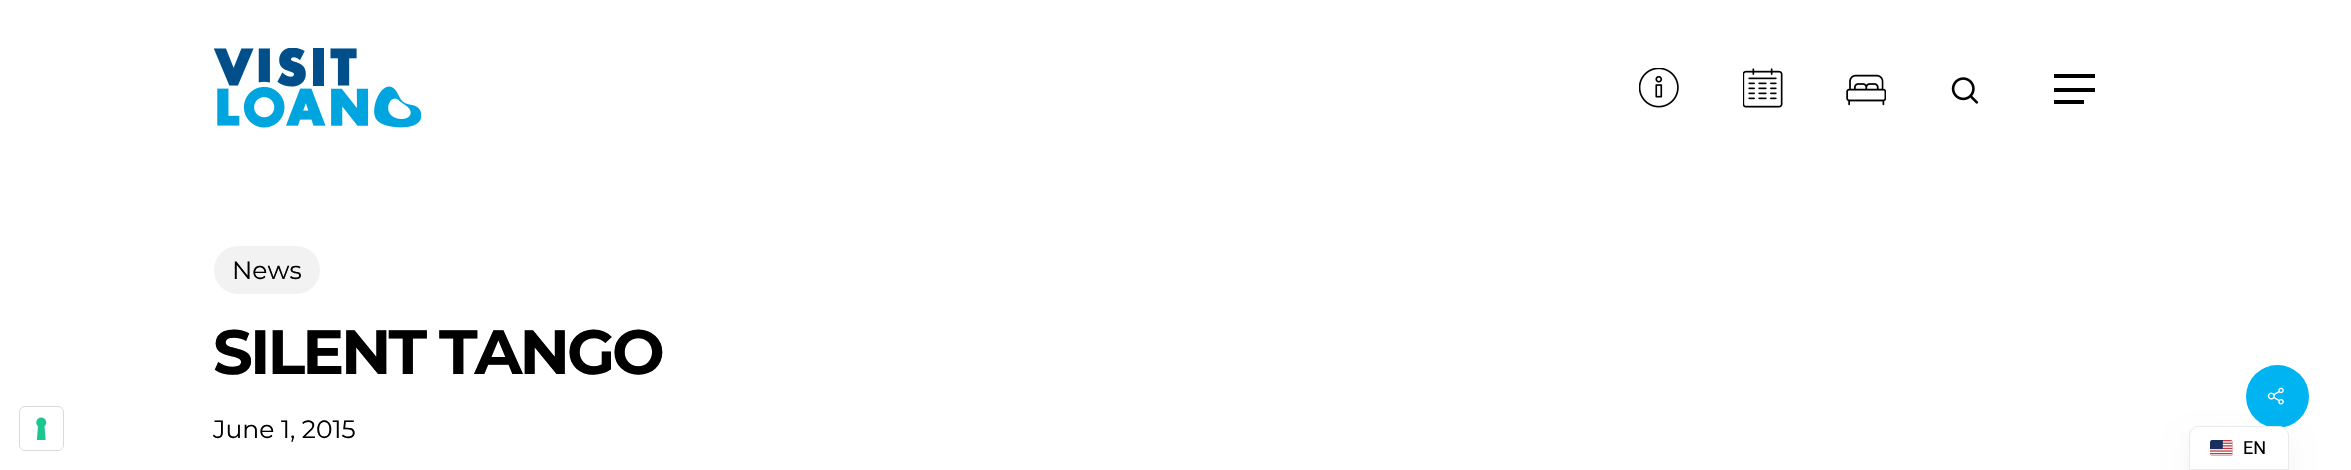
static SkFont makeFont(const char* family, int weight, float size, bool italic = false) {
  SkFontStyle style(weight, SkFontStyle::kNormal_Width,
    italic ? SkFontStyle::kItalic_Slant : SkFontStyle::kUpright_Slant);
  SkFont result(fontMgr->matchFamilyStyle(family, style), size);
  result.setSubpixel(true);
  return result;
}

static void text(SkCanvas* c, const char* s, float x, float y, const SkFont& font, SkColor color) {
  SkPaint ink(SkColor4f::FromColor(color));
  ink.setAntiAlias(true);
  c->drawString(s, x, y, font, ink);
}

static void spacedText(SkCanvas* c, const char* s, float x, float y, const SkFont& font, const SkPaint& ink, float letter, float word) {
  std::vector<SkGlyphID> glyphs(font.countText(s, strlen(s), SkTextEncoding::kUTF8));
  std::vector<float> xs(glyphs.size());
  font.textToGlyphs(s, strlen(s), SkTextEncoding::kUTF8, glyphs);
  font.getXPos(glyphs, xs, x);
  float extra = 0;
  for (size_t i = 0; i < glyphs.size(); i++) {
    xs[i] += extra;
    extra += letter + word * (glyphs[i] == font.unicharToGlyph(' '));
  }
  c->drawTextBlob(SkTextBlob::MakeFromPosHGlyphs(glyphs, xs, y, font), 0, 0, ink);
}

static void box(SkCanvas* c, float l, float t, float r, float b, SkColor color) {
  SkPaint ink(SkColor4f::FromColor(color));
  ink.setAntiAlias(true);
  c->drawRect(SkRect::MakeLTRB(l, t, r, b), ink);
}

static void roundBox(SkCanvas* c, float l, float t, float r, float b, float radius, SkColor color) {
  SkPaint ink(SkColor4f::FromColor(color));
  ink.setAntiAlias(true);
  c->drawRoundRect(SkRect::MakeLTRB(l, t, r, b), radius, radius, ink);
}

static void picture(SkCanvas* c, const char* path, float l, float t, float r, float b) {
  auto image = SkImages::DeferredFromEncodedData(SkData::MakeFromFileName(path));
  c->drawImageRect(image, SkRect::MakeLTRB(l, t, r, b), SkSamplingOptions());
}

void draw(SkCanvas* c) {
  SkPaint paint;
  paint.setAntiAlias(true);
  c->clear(0xffffffff);
  paint.setStyle(SkPaint::kStroke_Style);
  paint.setStrokeWidth(1);
  paint.setColor(0xffd9d9d9);
  c->drawRoundRect(SkRect::MakeLTRB(19.5f, 406.5f, 63.5f, 450.5f), 5.5f, 5.5f, paint);
  roundBox(c, 20, 408, 63, 450, 5, 0xffffffff);
  picture(c, "img_01.png", 36, 417, 47, 440);
  picture(c, "img_02.png", 214, 48, 421, 128);
  picture(c, "img_03.png", 1639, 68, 1679, 108);
  picture(c, "img_04.png", 1743, 68, 1783, 108);
  picture(c, "img_05.png", 1846, 74, 1886, 106);
  picture(c, "img_06.png", 1951, 77, 1979, 104);
  box(c, 2054, 74, 2095, 78, 0xff000000);
  box(c, 2054, 100, 2084, 104, 0xff000000);
  box(c, 2054, 88, 2095, 92, 0xff000000);
  roundBox(c, 214, 246, 320, 294, 24, 0xfff2f2f2);
  SkFont face1 = makeFont("Montserrat", 400, 25);
  text(c, "News", 232, 279, face1, 0xff000000);
  SkFont face2 = makeFont("Montserrat", 700, 62.5f);
  paint.setStyle(SkPaint::kFill_Style);
  paint.setColor(0xff000000);
  spacedText(c, "SILENT TANGO", 213, 374, face2, paint, -3, 0);
  text(c, "June 1, 2015", 213, 438, face1, 0xff000000);
  paint.setColor(0xff00b4f1);
  c->drawCircle(2277.5f, 396.5f, 31.5f, paint);
  picture(c, "img_07.png", 2267, 387, 2284, 405);
  paint.setColor(0x0d000000);
  paint.setMaskFilter(SkMaskFilter::MakeBlur(kNormal_SkBlurStyle, 12.5f));
  c->drawRoundRect(SkRect::MakeLTRB(2189, 439, 2289, 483), 10, 10, paint);
  paint.setMaskFilter(nullptr);
  paint.setColor(0xffffffff);
  c->drawPath(SkPathBuilder().moveTo(2199, 426).lineTo(2279, 426).cubicTo(2284.5f, 426, 2289, 430.5f, 2289, 436).lineTo(2289, 470).lineTo(2189, 470).lineTo(2189, 436).cubicTo(2189, 430.5f, 2193.5f, 426, 2199, 426).close().detach(), paint);
  paint.setStyle(SkPaint::kStroke_Style);
  paint.setColor(0x1a143852);
  c->drawPath(SkPathBuilder().moveTo(2199, 426.5f).lineTo(2279, 426.5f).cubicTo(2284, 426.5f, 2288.5f, 431, 2288.5f, 436).lineTo(2288.5f, 469.5f).lineTo(2189.5f, 469.5f).lineTo(2189.5f, 436).cubicTo(2189.5f, 431, 2194, 426.5f, 2199, 426.5f).close().detach(), paint);
  picture(c, "img_08.png", 2210, 440, 2233, 456);
  SkFont face3 = makeFont("Roboto", 400, 18);
  text(c, "EN", 2243, 454, face3, 0xff000000);
}
